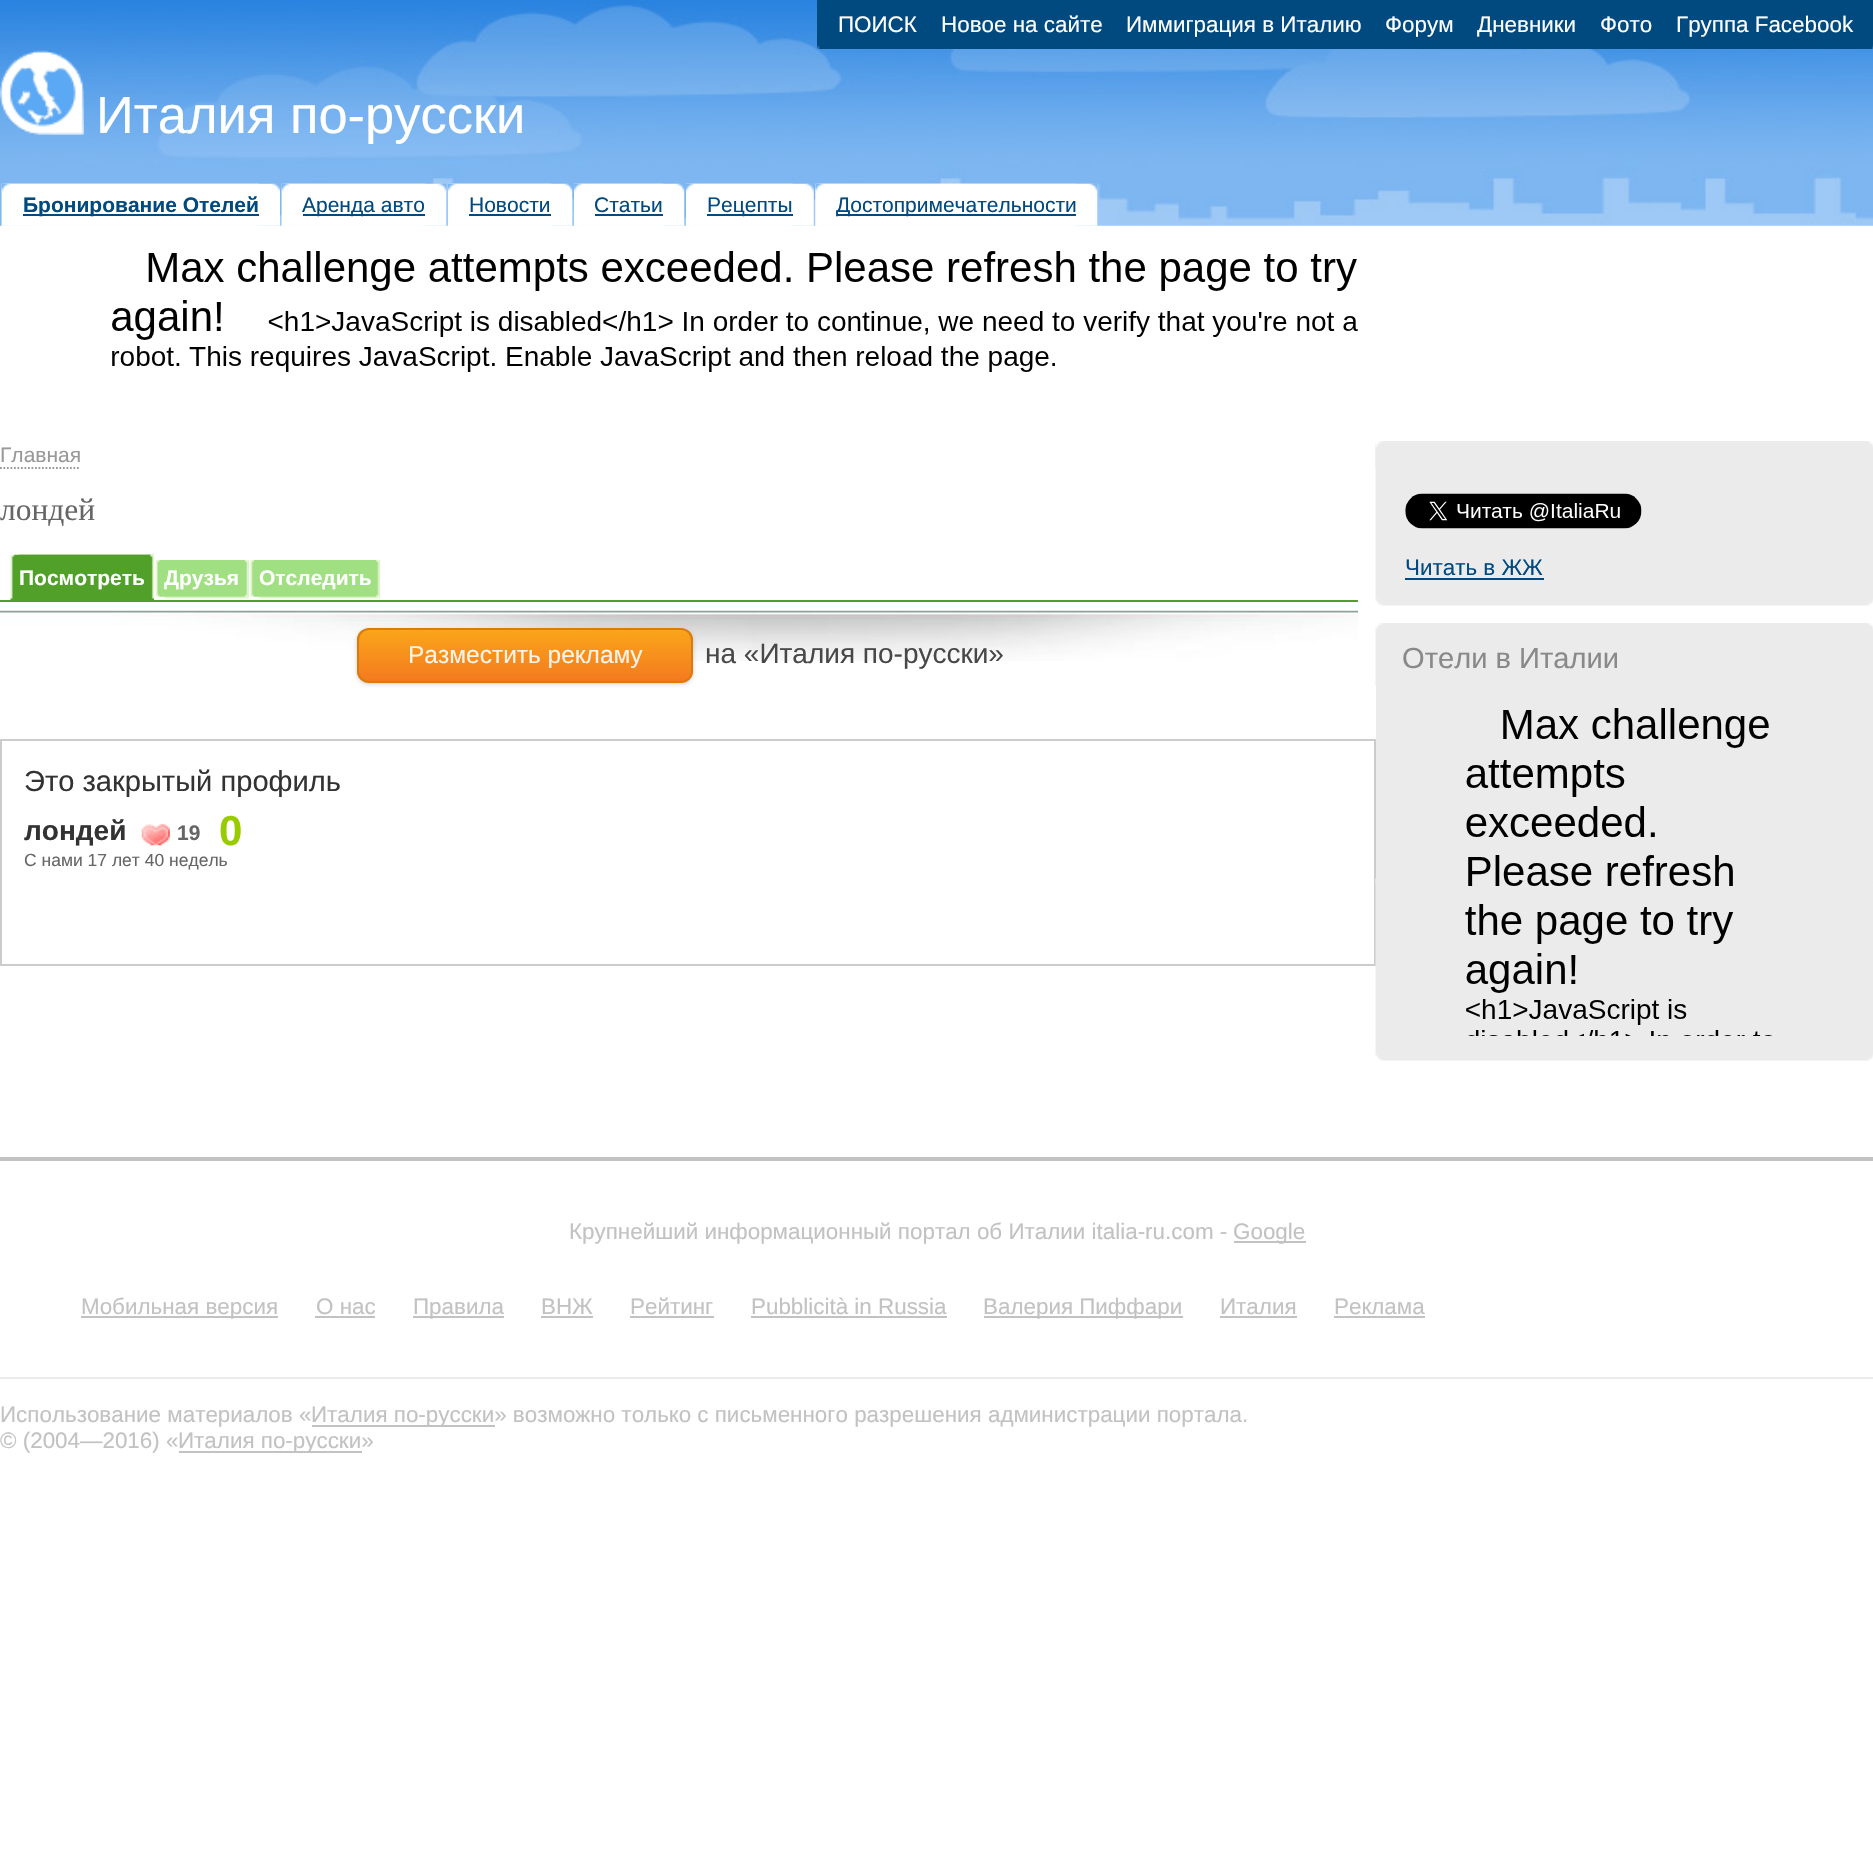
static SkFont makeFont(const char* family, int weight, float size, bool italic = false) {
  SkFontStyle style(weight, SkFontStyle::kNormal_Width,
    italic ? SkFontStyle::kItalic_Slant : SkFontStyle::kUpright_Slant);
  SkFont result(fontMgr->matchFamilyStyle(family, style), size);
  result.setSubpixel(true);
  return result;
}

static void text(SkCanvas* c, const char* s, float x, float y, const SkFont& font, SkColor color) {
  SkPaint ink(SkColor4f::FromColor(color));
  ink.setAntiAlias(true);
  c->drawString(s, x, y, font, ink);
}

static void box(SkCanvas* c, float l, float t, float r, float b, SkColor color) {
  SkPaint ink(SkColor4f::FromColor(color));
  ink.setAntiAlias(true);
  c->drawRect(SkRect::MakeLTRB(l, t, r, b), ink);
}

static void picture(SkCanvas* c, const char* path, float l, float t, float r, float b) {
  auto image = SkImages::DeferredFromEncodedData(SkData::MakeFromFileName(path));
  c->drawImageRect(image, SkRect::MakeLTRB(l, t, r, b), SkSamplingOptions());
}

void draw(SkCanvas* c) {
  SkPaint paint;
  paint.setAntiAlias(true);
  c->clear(0xffffffff);
  picture(c, "img_01.png", 0, 0, 1873, 226);
  box(c, 817, 0, 1873, 49, 0xff004a80);
  picture(c, "img_02.png", 817, 45, 820, 49);
  picture(c, "img_03.png", 1872, 45, 1873, 49);
  SkFont face1 = makeFont("Liberation Sans", 400, 22.4f);
  text(c, "ПОИСК", 838, 32, face1, 0xffffffff);
  text(c, "Новое на сайте", 941, 32, face1, 0xffffffff);
  text(c, "Иммиграция в Италию", 1126, 32, face1, 0xffffffff);
  text(c, "Форум", 1385, 32, face1, 0xffffffff);
  text(c, "Дневники", 1477, 32, face1, 0xffffffff);
  text(c, "Фото", 1600, 32, face1, 0xffffffff);
  text(c, "Группа Facebook", 1676, 32, face1, 0xffffffff);
  picture(c, "img_04.png", 0, 50, 84, 135);
  SkFont face2 = makeFont("Liberation Sans", 400, 52.5f);
  text(c, "Италия по-русски", 96, 133, face2, 0xffffffff);
  picture(c, "img_05.png", 1, 183, 280, 226);
  picture(c, "img_06.png", 1, 183, 259, 226);
  box(c, 23, 214, 259, 216, 0xff004a80);
  SkFont face3 = makeFont("Liberation Sans", 700, 21);
  text(c, "Бронирование Отелей", 23, 212, face3, 0xff004a80);
  picture(c, "img_07.png", 281, 183, 447, 226);
  picture(c, "img_08.png", 281, 183, 426, 226);
  box(c, 303, 214, 425, 216, 0xff004a80);
  SkFont face4 = makeFont("Liberation Sans", 400, 21);
  text(c, "Аренда авто", 302, 212, face4, 0xff004a80);
  picture(c, "img_09.png", 448, 183, 573, 226);
  picture(c, "img_10.png", 448, 183, 552, 226);
  text(c, "Новости", 469, 212, face4, 0xff004a80);
  box(c, 469, 214, 551, 216, 0xff004a80);
  picture(c, "img_11.png", 574, 183, 685, 226);
  picture(c, "img_12.png", 574, 183, 664, 226);
  text(c, "Статьи", 594, 212, face4, 0xff004a80);
  box(c, 595, 214, 663, 216, 0xff004a80);
  picture(c, "img_13.png", 686, 183, 814, 226);
  picture(c, "img_14.png", 686, 183, 793, 226);
  box(c, 707, 214, 793, 216, 0xff004a80);
  text(c, "Рецепты", 707, 212, face4, 0xff004a80);
  picture(c, "img_15.png", 815, 183, 1098, 226);
  picture(c, "img_16.png", 815, 183, 1077, 226);
  box(c, 837, 214, 1076, 216, 0xff004a80);
  text(c, "Достопримечательности", 836, 212, face4, 0xff004a80);
  picture(c, "img_17.png", 112, 251, 1358, 372);
  text(c, "Главная", 0, 462, face4, 0xff999999);
  paint.setStyle(SkPaint::kStroke_Style);
  paint.setStrokeWidth(1.8f);
  paint.setColor(0xff999999);
  paint.setPathEffect(SkDashPathEffect::Make({{1.75f, 1.75f}}, 0));
  c->drawPath(SkPathBuilder().moveTo(0, 468).lineTo(80.5f, 468).detach(), paint);
  paint.setPathEffect(nullptr);
  SkFont face5 = makeFont("Liberation Serif", 400, 31.5f);
  text(c, "лондей", 0, 520, face5, 0xff666666);
  box(c, 0, 600, 1358, 602, 0xff519e2d);
  picture(c, "img_18.png", 10, 554, 154, 600);
  picture(c, "img_19.png", 19, 554, 154, 599);
  text(c, "Посмотреть", 19, 585, face3, 0xffffffff);
  picture(c, "img_20.png", 155, 560, 249, 597);
  picture(c, "img_21.png", 164, 560, 249, 599);
  text(c, "Друзья", 164, 585, face3, 0xffffffff);
  picture(c, "img_22.png", 250, 560, 380, 597);
  picture(c, "img_23.png", 259, 560, 380, 599);
  text(c, "Отследить", 259, 585, face3, 0xffffffff);
  picture(c, "img_24.png", 0, 610, 1358, 661);
  paint.setStyle(SkPaint::kFill_Style);
  paint.setColor(0x33000000);
  paint.setMaskFilter(SkMaskFilter::MakeBlur(kNormal_SkBlurStyle, 2));
  c->drawRoundRect(SkRect::MakeLTRB(357, 630, 693, 684), 12, 12, paint);
  paint.setMaskFilter(nullptr);
  c->save();
  c->clipPath(SkPathBuilder().moveTo(369, 628).lineTo(681, 628).cubicTo(687.5f, 628, 693, 633.5f, 693, 640).lineTo(693, 671).cubicTo(693, 677.5f, 687.5f, 683, 681, 683).lineTo(369, 683).cubicTo(362.5f, 683, 357, 677.5f, 357, 671).lineTo(357, 640).cubicTo(357, 633.5f, 362.5f, 628, 369, 628).close().detach(), true);
  {
    const SkColor colors[] = {0xfffaa51a, 0xfff47a20};
    const float stops[] = {0, 1};
    const SkPoint ends[] = {{359, 630}, {359, 681}};
    paint.setShader(SkGradientShader::MakeLinear(ends, colors, stops, 2, SkTileMode::kClamp));
    paint.setAlpha(255);
  }
  c->drawRect(SkRect::MakeLTRB(357, 630, 693, 681), paint);
  c->restore();
  paint.setStyle(SkPaint::kStroke_Style);
  paint.setStrokeWidth(2);
  paint.setShader(nullptr);
  paint.setColor(0xffda7c0c);
  c->drawRoundRect(SkRect::MakeLTRB(358, 629, 692, 682), 11, 11, paint);
  SkFont face6 = makeFont("Liberation Sans", 400, 24.5f);
  text(c, "Разместить рекламу", 408, 663, face6, 0xfffef4e9);
  SkFont face7 = makeFont("Liberation Sans", 400, 28);
  text(c, "на «Италия по-русски»", 705, 663, face7, 0xff484848);
  paint.setColor(0xffcccccc);
  c->drawRect(SkRect::MakeLTRB(1, 740, 1375, 965), paint);
  SkFont face8 = makeFont("Liberation Sans", 400, 29.1f);
  text(c, "Это закрытый профиль", 24, 791, face8, 0xff333333);
  SkFont face9 = makeFont("Liberation Sans", 700, 28);
  text(c, "лондей", 24, 840, face9, 0xff333333);
  picture(c, "img_25.png", 141, 823, 170, 846);
  text(c, "19", 177, 840, face3, 0xff666666);
  SkFont face10 = makeFont("Liberation Sans", 700, 42);
  text(c, "0", 219, 845, face10, 0xff99cc00);
  SkFont face11 = makeFont("Liberation Sans", 400, 17.5f);
  text(c, "С нами 17 лет 40 недель", 24, 866, face11, 0xff666666);
  picture(c, "img_26.png", 1375, 441, 1873, 606);
  picture(c, "img_27.png", 1375, 441, 1873, 467);
  picture(c, "img_28.png", 1405, 493, 1642, 529);
  text(c, "Читать в ЖЖ", 1405, 575, face1, 0xff004a80);
  box(c, 1405, 578, 1544, 580, 0xff004a80);
  picture(c, "img_29.png", 1375, 878, 1873, 1061);
  picture(c, "img_30.png", 1375, 623, 1873, 686);
  text(c, "Отели в Италии", 1402, 668, face8, 0xff898989);
  box(c, 1376, 686, 1873, 885, 0xffebebeb);
  picture(c, "img_31.png", 1465, 708, 1772, 1036);
  box(c, 0, 1157, 1873, 1161, 0xffc2c2c2);
  box(c, 0, 1377, 1873, 1379, 0xffebebeb);
  text(c, "Крупнейший информационный портал об Италии italia-ru.com -", 569, 1239, face1, 0xffc2c2c2);
  box(c, 1234, 1241, 1306, 1243, 0xffc2c2c2);
  text(c, "Google", 1233, 1239, face1, 0xffc2c2c2);
  box(c, 81, 1316, 278, 1318, 0xffc2c2c2);
  text(c, "Мобильная версия", 81, 1314, face1, 0xffc2c2c2);
  text(c, "О нас", 316, 1314, face1, 0xffc2c2c2);
  box(c, 315, 1316, 375, 1318, 0xffc2c2c2);
  box(c, 413, 1316, 504, 1318, 0xffc2c2c2);
  text(c, "Правила", 413, 1314, face1, 0xffc2c2c2);
  text(c, "ВНЖ", 541, 1314, face1, 0xffc2c2c2);
  box(c, 541, 1316, 593, 1318, 0xffc2c2c2);
  text(c, "Рейтинг", 630, 1314, face1, 0xffc2c2c2);
  box(c, 630, 1316, 714, 1318, 0xffc2c2c2);
  text(c, "Pubblicità in Russia", 751, 1314, face1, 0xffc2c2c2);
  box(c, 751, 1316, 947, 1318, 0xffc2c2c2);
  box(c, 984, 1316, 1183, 1318, 0xffc2c2c2);
  text(c, "Валерия Пиффари", 983, 1314, face1, 0xffc2c2c2);
  text(c, "Италия", 1220, 1314, face1, 0xffc2c2c2);
  box(c, 1220, 1316, 1297, 1318, 0xffc2c2c2);
  text(c, "Реклама", 1334, 1314, face1, 0xffc2c2c2);
  box(c, 1334, 1316, 1425, 1318, 0xffc2c2c2);
  text(c, "Использование материалов «", 0, 1422, face1, 0xffc2c2c2);
  box(c, 312, 1425, 495, 1427, 0xffc2c2c2);
  text(c, "Италия по-русски» возможно только с письменного разрешения администрации портала.", 311, 1422, face1, 0xffc2c2c2);
  text(c, "© (2004—2016) «", 0, 1448, face1, 0xffc2c2c2);
  box(c, 179, 1451, 362, 1453, 0xffc2c2c2);
  text(c, "Италия по-русски»", 178, 1448, face1, 0xffc2c2c2);
}
